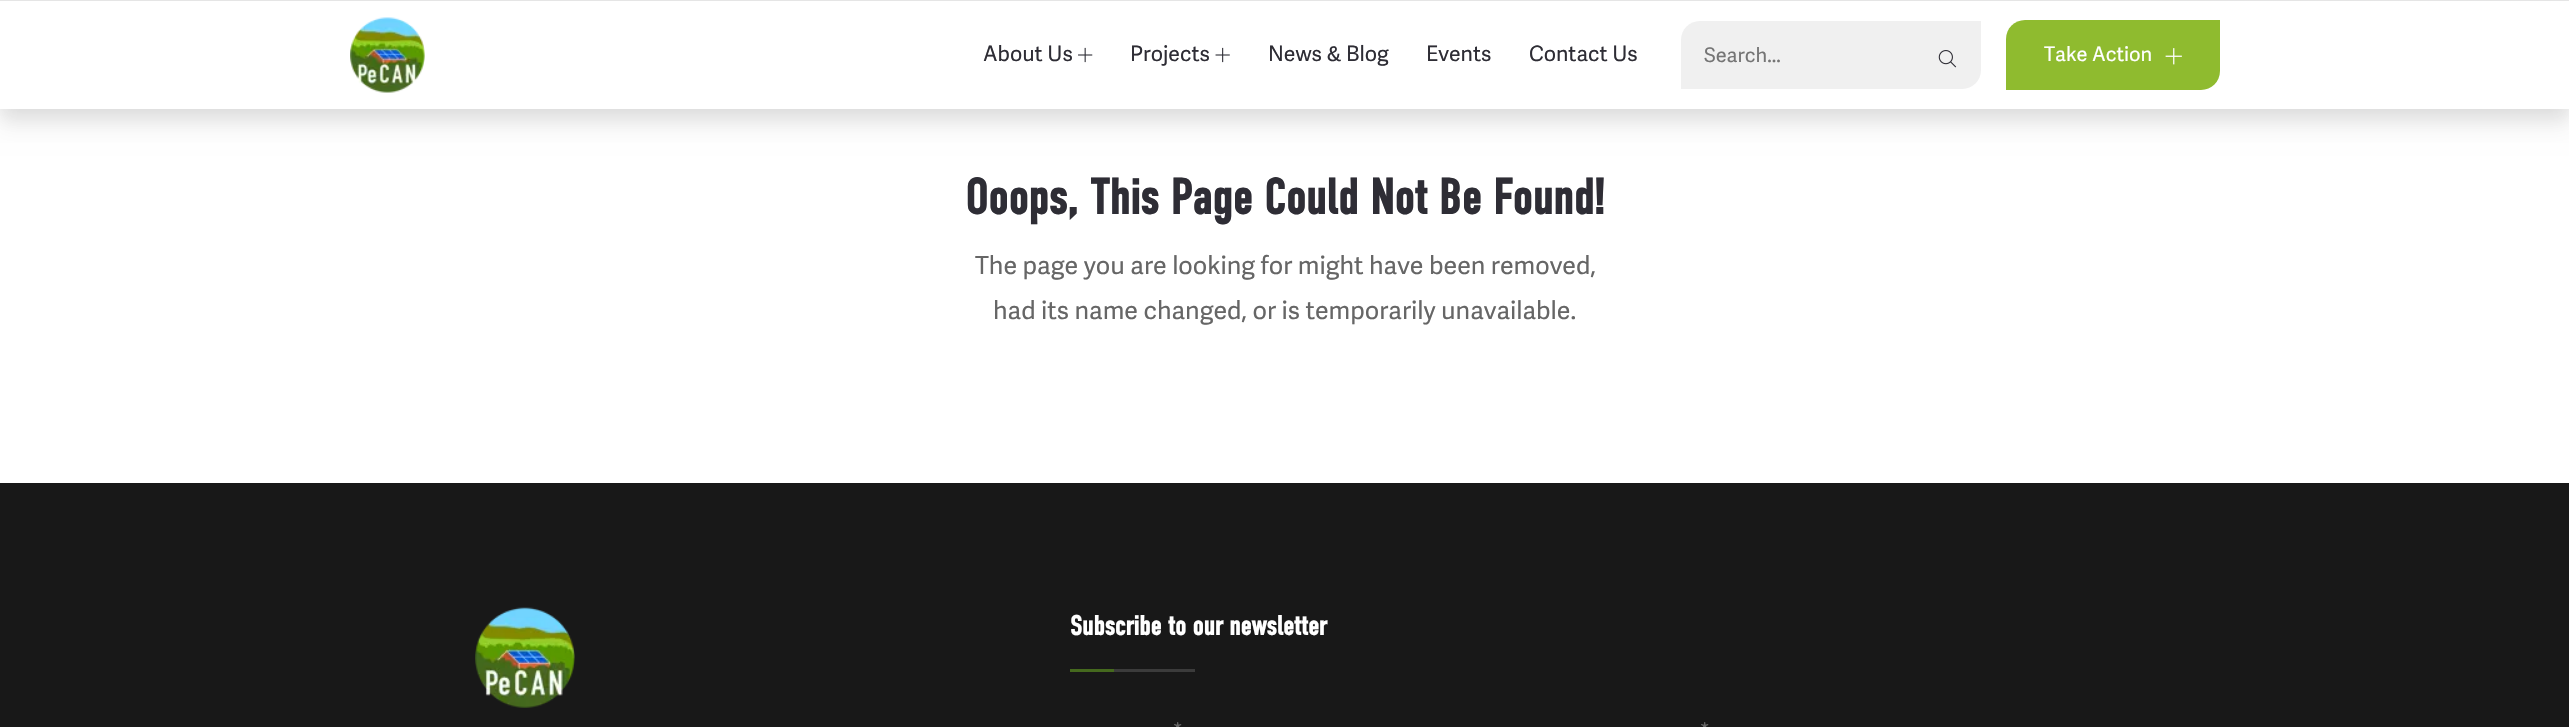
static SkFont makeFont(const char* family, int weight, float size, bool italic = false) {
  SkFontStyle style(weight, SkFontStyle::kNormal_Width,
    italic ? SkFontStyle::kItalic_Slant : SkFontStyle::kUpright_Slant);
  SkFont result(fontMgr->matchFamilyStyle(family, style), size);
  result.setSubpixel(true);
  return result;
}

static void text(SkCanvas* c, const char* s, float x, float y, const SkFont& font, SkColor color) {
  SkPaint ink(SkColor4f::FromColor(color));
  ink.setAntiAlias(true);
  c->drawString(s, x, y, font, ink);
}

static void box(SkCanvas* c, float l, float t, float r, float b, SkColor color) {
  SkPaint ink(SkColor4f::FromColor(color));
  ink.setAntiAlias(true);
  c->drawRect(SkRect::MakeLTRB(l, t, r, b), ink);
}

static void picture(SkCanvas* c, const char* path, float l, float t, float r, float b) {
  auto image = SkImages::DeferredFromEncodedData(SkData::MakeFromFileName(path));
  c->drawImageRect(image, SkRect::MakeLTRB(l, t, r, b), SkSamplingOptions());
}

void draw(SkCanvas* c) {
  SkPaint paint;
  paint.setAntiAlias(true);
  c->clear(0xffffffff);
  paint.setColor(0x1a000000);
  paint.setMaskFilter(SkMaskFilter::MakeBlur(kNormal_SkBlurStyle, 9.5f));
  c->drawRect(SkRect::MakeLTRB(0, -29, 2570, 115), paint);
  paint.setMaskFilter(nullptr);
  box(c, 0, 0, 2569, 1, 0xffe6e6e6);
  paint.setColor(0x0d000000);
  paint.setMaskFilter(SkMaskFilter::MakeBlur(kNormal_SkBlurStyle, 9.5f));
  c->drawRect(SkRect::MakeLTRB(0, 20, 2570, 128), paint);
  paint.setMaskFilter(nullptr);
  box(c, 0, 1, 2569, 109, 0xffffffff);
  picture(c, "img_01.png", 350, 17, 425, 93);
  SkFont face1 = makeFont("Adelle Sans", 400, 21.25f);
  text(c, "About Us", 983, 61, face1, 0xff2e2d35);
  picture(c, "img_02.png", 1078, 47, 1093, 63);
  text(c, "Projects", 1130, 61, face1, 0xff2e2d35);
  picture(c, "img_03.png", 1215, 47, 1230, 63);
  text(c, "News & Blog", 1268, 61, face1, 0xff2e2d35);
  text(c, "Events", 1426, 61, face1, 0xff2e2d35);
  text(c, "Contact Us", 1529, 61, face1, 0xff2e2d35);
  paint.setColor(0xfff0f0f0);
  c->drawPath(SkPathBuilder().moveTo(1700, 21).lineTo(1981, 21).lineTo(1981, 70).cubicTo(1981, 80.5f, 1972.5f, 89, 1962, 89).lineTo(1681, 89).lineTo(1681, 40).cubicTo(1681, 29.5f, 1689.5f, 21, 1700, 21).close().detach(), paint);
  SkFont face2 = makeFont("Adelle Sans", 400, 20);
  text(c, "Search...", 1704, 62, face2, 0xff757575);
  picture(c, "img_04.png", 1938, 50, 1957, 68);
  paint.setColor(0xff8fbb2f);
  c->drawPath(SkPathBuilder().moveTo(2025, 20).lineTo(2220, 20).lineTo(2220, 71).cubicTo(2220, 81.5f, 2211.5f, 90, 2201, 90).lineTo(2006, 90).lineTo(2006, 39).cubicTo(2006, 28.5f, 2014.5f, 20, 2025, 20).close().detach(), paint);
  text(c, "Take Action", 2044, 61, face2, 0xffffffff);
  picture(c, "img_05.png", 2165, 48, 2182, 65);
  SkFont face3 = makeFont("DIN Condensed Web", 700, 50);
  text(c, "Ooops, This Page Could Not Be Found!", 965, 214, face3, 0xff2e2d35);
  SkFont face4 = makeFont("Adelle Sans", 400, 25);
  text(c, "The page you are looking for might have been removed,", 975, 274, face4, 0xff666666);
  text(c, "had its name changed, or is temporarily unavailable.", 993, 319, face4, 0xff666666);
  box(c, 0, 483, 2569, 727, 0xff181818);
  picture(c, "img_06.png", 475, 607, 575, 708);
  SkFont face5 = makeFont("DIN Condensed Web", 700, 27.5f);
  text(c, "Subscribe to our newsletter", 1070, 635, face5, 0xffffffff);
  box(c, 1070, 669, 1114, 672, 0xff45691e);
  box(c, 1114, 669, 1195, 672, 0xff3b3b3b);
  text(c, "*", 1173, 737, face2, 0xff666666);
  text(c, "*", 1700, 737, face2, 0xff666666);
}
